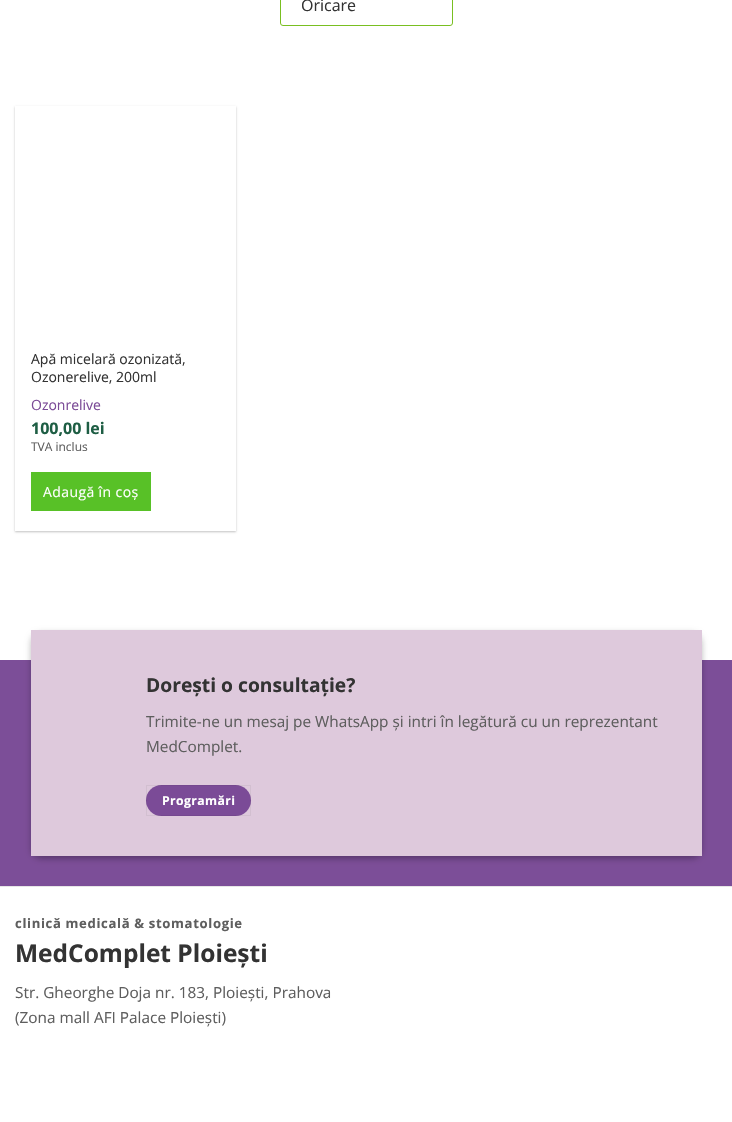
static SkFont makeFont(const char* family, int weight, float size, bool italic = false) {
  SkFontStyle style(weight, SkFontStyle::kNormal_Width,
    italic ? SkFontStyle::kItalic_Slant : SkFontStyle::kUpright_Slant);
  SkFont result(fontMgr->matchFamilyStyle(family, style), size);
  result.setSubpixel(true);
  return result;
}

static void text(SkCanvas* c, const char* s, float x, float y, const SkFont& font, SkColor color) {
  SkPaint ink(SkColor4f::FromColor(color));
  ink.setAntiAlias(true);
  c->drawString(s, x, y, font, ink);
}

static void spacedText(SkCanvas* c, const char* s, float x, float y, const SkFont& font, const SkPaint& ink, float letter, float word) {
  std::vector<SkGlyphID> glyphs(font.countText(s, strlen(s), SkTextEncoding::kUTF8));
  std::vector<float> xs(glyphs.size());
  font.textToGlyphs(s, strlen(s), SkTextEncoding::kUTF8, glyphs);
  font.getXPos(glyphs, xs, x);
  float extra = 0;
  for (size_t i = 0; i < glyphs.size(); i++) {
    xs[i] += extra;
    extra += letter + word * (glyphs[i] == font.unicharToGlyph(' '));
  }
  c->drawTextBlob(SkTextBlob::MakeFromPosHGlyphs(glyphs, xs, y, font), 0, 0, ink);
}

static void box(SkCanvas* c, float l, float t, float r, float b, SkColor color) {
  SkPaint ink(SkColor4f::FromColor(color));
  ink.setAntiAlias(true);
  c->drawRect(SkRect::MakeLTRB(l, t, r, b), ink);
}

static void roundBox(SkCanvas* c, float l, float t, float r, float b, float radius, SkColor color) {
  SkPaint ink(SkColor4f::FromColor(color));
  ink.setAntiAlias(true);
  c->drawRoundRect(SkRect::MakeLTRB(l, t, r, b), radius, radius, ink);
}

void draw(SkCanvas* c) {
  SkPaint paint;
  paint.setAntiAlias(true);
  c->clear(0xffffffff);
  paint.setStyle(SkPaint::kStroke_Style);
  paint.setStrokeWidth(1);
  paint.setColor(0xff79bf21);
  c->drawRoundRect(SkRect::MakeLTRB(280.5f, -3.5f, 452.5f, 25.5f), 2.5f, 2.5f, paint);
  SkFont face1 = makeFont("Open Sans", 400, 16);
  text(c, "Oricare", 301, 11, face1, 0xff333333);
  c->save();
  c->clipPath(SkPathBuilder(SkPathFillType::kEvenOdd).moveTo(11, 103).lineTo(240, 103).lineTo(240, 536).lineTo(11, 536).close().moveTo(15, 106).lineTo(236, 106).lineTo(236, 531).lineTo(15, 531).close().detach(), true);
  paint.setStyle(SkPaint::kFill_Style);
  paint.setColor(0x3d000000);
  paint.setMaskFilter(SkMaskFilter::MakeBlur(kNormal_SkBlurStyle, 1));
  c->drawRect(SkRect::MakeLTRB(15, 107, 236, 532), paint);
  paint.setMaskFilter(nullptr);
  c->restore();
  SkFont face2 = makeFont("Open Sans", 400, 14);
  text(c, "Apă micelară ozonizată,", 31, 364, face2, 0xff333333);
  text(c, "Ozonerelive, 200ml", 31, 382, face2, 0xff333333);
  text(c, "Ozonrelive", 31, 410, face2, 0xff7b4b97);
  SkFont face3 = makeFont("Open Sans", 700, 16);
  text(c, "100,00 lei", 31, 434, face3, 0xff1e5e44);
  SkFont face4 = makeFont("Open Sans", 400, 12);
  text(c, "TVA inclus", 31, 451, face4, 0xff5e5e5e);
  box(c, 31, 472, 151, 511, 0xff58c127);
  paint.setColor(0xffffffff);
  spacedText(c, "Adaugă în coș", 43, 497, face2, paint, 0.4f, 0);
  box(c, 0, 660, 732, 886, 0xff7c4e98);
  paint.setColor(0x3b000000);
  paint.setMaskFilter(SkMaskFilter::MakeBlur(kNormal_SkBlurStyle, 3));
  c->drawRoundRect(SkRect::MakeLTRB(31, 633, 702, 859), 10, 10, paint);
  paint.setMaskFilter(nullptr);
  paint.setColor(0x29000000);
  paint.setMaskFilter(SkMaskFilter::MakeBlur(kNormal_SkBlurStyle, 3));
  c->drawRoundRect(SkRect::MakeLTRB(35, 637, 698, 855), 6, 6, paint);
  paint.setMaskFilter(nullptr);
  box(c, 31, 630, 702, 856, 0xffdec9dc);
  SkFont face5 = makeFont("Open Sans", 700, 19.25f);
  text(c, "Dorești o consultație?", 146, 692, face5, 0xff333333);
  SkFont face6 = makeFont("Open Sans", 400, 15.35f);
  text(c, "Trimite-ne un mesaj pe WhatsApp și intri în legătură cu un reprezentant", 146, 727, face6, 0xff5e5e5e);
  text(c, "MedComplet.", 146, 752, face6, 0xff5e5e5e);
  roundBox(c, 146, 785, 251, 816, 15.5f, 0xff7b4b97);
  paint.setStyle(SkPaint::kStroke_Style);
  paint.setColor(0x0d000000);
  c->drawRect(SkRect::MakeLTRB(146.5f, 785.5f, 250.5f, 815.5f), paint);
  SkFont face7 = makeFont("Open Sans", 700, 12.25f);
  paint.setStyle(SkPaint::kFill_Style);
  paint.setColor(0xffffffff);
  spacedText(c, "Programări", 162, 805, face7, paint, 0.4f, 0);
  box(c, 0, 886, 732, 887, 0xffe6e6e6);
  SkFont face8 = makeFont("Open Sans", 700, 13.1f);
  paint.setColor(0xff5e5e5e);
  spacedText(c, "clinică medicală & stomatologie", 15, 928, face8, paint, 0.65f, 0);
  SkFont face9 = makeFont("Open Sans", 700, 24.5f);
  text(c, "MedComplet Ploiești", 15, 962, face9, 0xff333333);
  text(c, "Str. Gheorghe Doja nr. 183, Ploiești, Prahova", 15, 998, face6, 0xff5e5e5e);
  text(c, "(Zona mall AFI Palace Ploiești)", 15, 1023, face6, 0xff5e5e5e);
}
